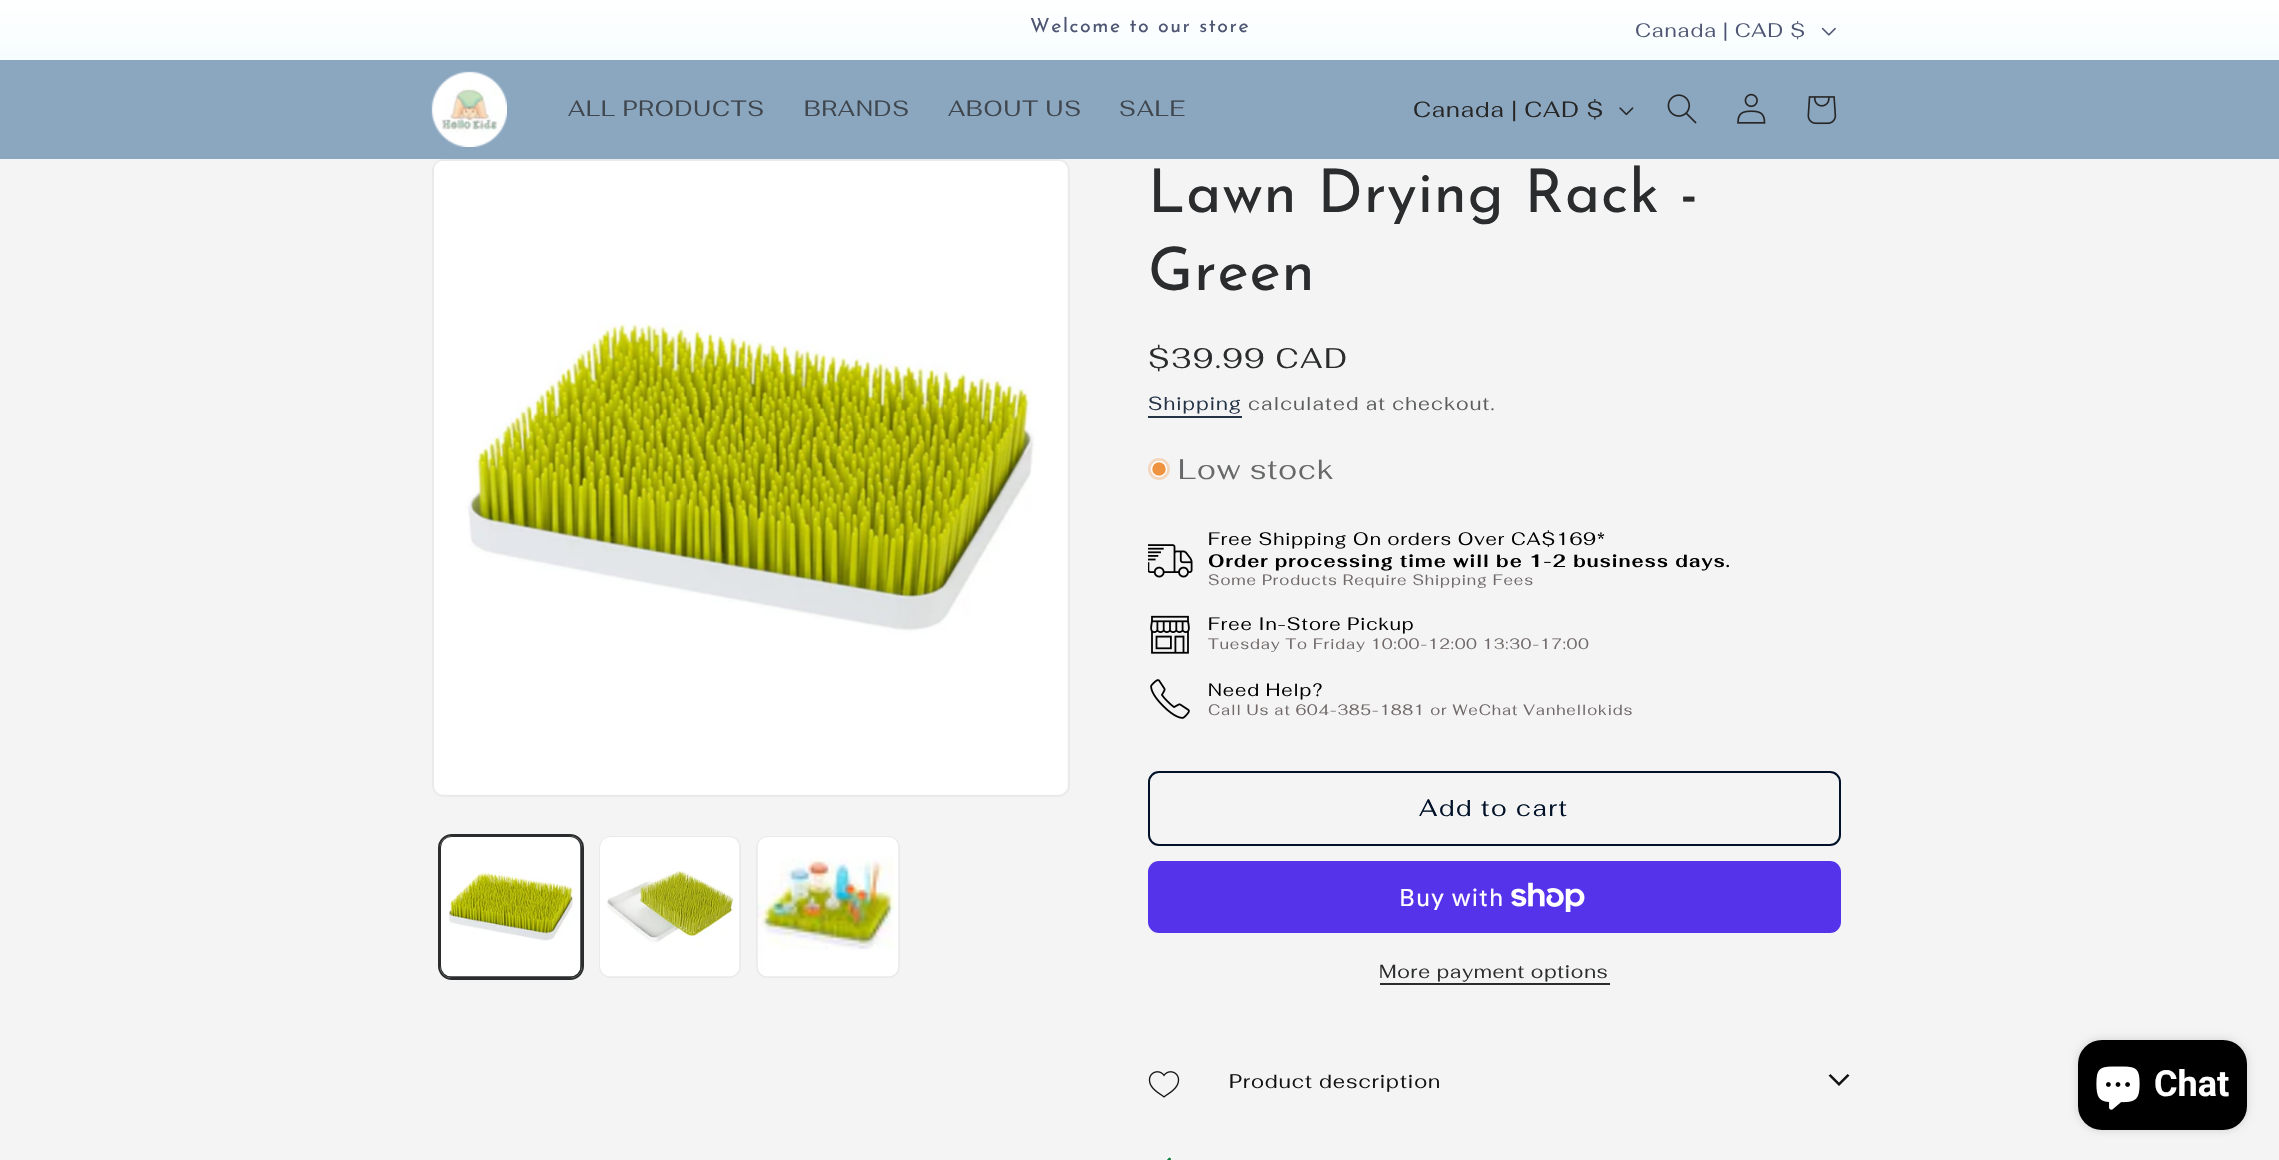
static SkFont makeFont(const char* family, int weight, float size, bool italic = false) {
  SkFontStyle style(weight, SkFontStyle::kNormal_Width,
    italic ? SkFontStyle::kItalic_Slant : SkFontStyle::kUpright_Slant);
  SkFont result(fontMgr->matchFamilyStyle(family, style), size);
  result.setSubpixel(true);
  return result;
}

static void text(SkCanvas* c, const char* s, float x, float y, const SkFont& font, SkColor color) {
  SkPaint ink(SkColor4f::FromColor(color));
  ink.setAntiAlias(true);
  c->drawString(s, x, y, font, ink);
}

static void spacedText(SkCanvas* c, const char* s, float x, float y, const SkFont& font, const SkPaint& ink, float letter, float word) {
  std::vector<SkGlyphID> glyphs(font.countText(s, strlen(s), SkTextEncoding::kUTF8));
  std::vector<float> xs(glyphs.size());
  font.textToGlyphs(s, strlen(s), SkTextEncoding::kUTF8, glyphs);
  font.getXPos(glyphs, xs, x);
  float extra = 0;
  for (size_t i = 0; i < glyphs.size(); i++) {
    xs[i] += extra;
    extra += letter + word * (glyphs[i] == font.unicharToGlyph(' '));
  }
  c->drawTextBlob(SkTextBlob::MakeFromPosHGlyphs(glyphs, xs, y, font), 0, 0, ink);
}

static void box(SkCanvas* c, float l, float t, float r, float b, SkColor color) {
  SkPaint ink(SkColor4f::FromColor(color));
  ink.setAntiAlias(true);
  c->drawRect(SkRect::MakeLTRB(l, t, r, b), ink);
}

static void roundBox(SkCanvas* c, float l, float t, float r, float b, float radius, SkColor color) {
  SkPaint ink(SkColor4f::FromColor(color));
  ink.setAntiAlias(true);
  c->drawRoundRect(SkRect::MakeLTRB(l, t, r, b), radius, radius, ink);
}

static void picture(SkCanvas* c, const char* path, float l, float t, float r, float b) {
  auto image = SkImages::DeferredFromEncodedData(SkData::MakeFromFileName(path));
  c->drawImageRect(image, SkRect::MakeLTRB(l, t, r, b), SkSamplingOptions());
}

void draw(SkCanvas* c) {
  SkPaint paint;
  paint.setAntiAlias(true);
  c->clear(0xfff4f4f4);
  {
    const SkColor colors[] = {0xffffffff, 0xff52daec};
    const float stops[] = {0, 1};
    const SkPoint ends[] = {{1140, 0}, {1140, 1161}};
    paint.setShader(SkGradientShader::MakeLinear(ends, colors, stops, 2, SkTileMode::kClamp));
    paint.setAlpha(255);
  }
  c->drawRect(SkRect::MakeLTRB(0, 0, 2279, 60), paint);
  SkFont face1 = makeFont("Josefin Sans", 400, 19.5f);
  paint.setShader(nullptr);
  paint.setColor(0xff4e5673);
  spacedText(c, "Welcome to our store", 1030, 32, face1, paint, 1.6f, 0);
  SkFont face2 = makeFont("Fahkwang", 400, 19.5f);
  spacedText(c, "Canada | CAD $", 1635, 37, face2, paint, 0.95f, 0);
  picture(c, "img_01.png", 1821, 27, 1836, 36);
  box(c, 0, 60, 2279, 159, 0xff8ba7c0);
  picture(c, "img_02.png", 431, 71, 507, 147);
  SkFont face3 = makeFont("Fahkwang", 400, 22);
  paint.setColor(0xff3f464d);
  spacedText(c, "ALL PRODUCTS", 568, 116, face3, paint, 0.95f, 0);
  spacedText(c, "BRANDS", 804, 116, face3, paint, 0.95f, 0);
  spacedText(c, "ABOUT US", 948, 116, face3, paint, 0.95f, 0);
  spacedText(c, "SALE", 1119, 116, face3, paint, 0.95f, 0);
  paint.setColor(0xff262626);
  spacedText(c, "Canada | CAD $", 1413, 117, face3, paint, 0.95f, 0);
  picture(c, "img_03.png", 1619, 107, 1634, 116);
  picture(c, "img_04.png", 1667, 94, 1697, 124);
  picture(c, "img_05.png", 1737, 93, 1766, 124);
  picture(c, "img_06.png", 1807, 96, 1837, 125);
  paint.setStyle(SkPaint::kStroke_Style);
  paint.setStrokeWidth(2);
  paint.setColor(0xffeaeaea);
  c->drawRoundRect(SkRect::MakeLTRB(433, 160, 1069, 796), 11, 11, paint);
  picture(c, "img_07.png", 434, 161, 1068, 795);
  paint.setColor(0xff2b2c2d);
  c->drawRoundRect(SkRect::MakeLTRB(439, 835, 583, 979), 13, 13, paint);
  c->drawRoundRect(SkRect::MakeLTRB(441, 837, 581, 977), 11, 11, paint);
  picture(c, "img_08.png", 441, 837, 581, 977);
  paint.setColor(0xffeaeaea);
  c->drawRoundRect(SkRect::MakeLTRB(600, 837, 740, 977), 11, 11, paint);
  picture(c, "img_09.png", 600, 837, 740, 977);
  c->drawRoundRect(SkRect::MakeLTRB(757, 837, 899, 977), 11, 11, paint);
  picture(c, "img_10.png", 757, 837, 899, 977);
  SkFont face4 = makeFont("Josefin Sans", 400, 60);
  paint.setStyle(SkPaint::kFill_Style);
  paint.setColor(0xff2b2c2d);
  spacedText(c, "Lawn Drying Rack -", 1148, 212, face4, paint, 0.9f, 0);
  spacedText(c, "Green", 1148, 290, face4, paint, 0.9f, 0);
  SkFont face5 = makeFont("Fahkwang", 400, 28.25f);
  spacedText(c, "$39.99 CAD", 1148, 368, face5, paint, 2, 0);
  SkFont face6 = makeFont("Fahkwang", 400, 18.9f);
  paint.setColor(0xff253347);
  spacedText(c, "Shipping", 1148, 410, face6, paint, 1.1f, 0);
  box(c, 1148, 416, 1242, 418, 0xff253347);
  paint.setColor(0xff5d5e5f);
  spacedText(c, "calculated at checkout.", 1248, 410, face6, paint, 1.1f, 0);
  paint.setColor(0xfff2d7be);
  c->drawCircle(1159, 469, 11, paint);
  paint.setColor(0xffee9441);
  c->drawCircle(1159, 469, 7.5f, paint);
  paint.setStyle(SkPaint::kStroke_Style);
  paint.setStrokeWidth(1.5f);
  paint.setColor(0xffffffff);
  c->drawCircle(1159, 469, 7.5f, paint);
  paint.setStyle(SkPaint::kFill_Style);
  paint.setColor(0xff676869);
  spacedText(c, "Low stock", 1178, 479, face5, paint, 0.95f, 0);
  picture(c, "img_11.png", 1148, 544, 1193, 578);
  SkFont face7 = makeFont("Fahkwang", 400, 18);
  paint.setColor(0xff000000);
  spacedText(c, "Free Shipping On orders Over CA$169*", 1208, 545, face7, paint, 0.95f, 0);
  SkFont face8 = makeFont("Fahkwang", 700, 18);
  spacedText(c, "Order processing time will be 1-2 business days.", 1208, 567, face8, paint, 0.95f, 0);
  SkFont face9 = makeFont("Fahkwang", 400, 15);
  paint.setColor(0xff716969);
  spacedText(c, "Some Products Require Shipping Fees", 1208, 585, face9, paint, 0.95f, 0);
  picture(c, "img_12.png", 1150, 615, 1190, 654);
  paint.setColor(0xff000000);
  spacedText(c, "Free In-Store Pickup", 1208, 630, face7, paint, 0.95f, 0);
  paint.setColor(0xff716969);
  spacedText(c, "Tuesday To Friday 10:00-12:00 13:30-17:00", 1208, 649, face9, paint, 0.95f, 0);
  picture(c, "img_13.png", 1150, 679, 1190, 719);
  paint.setColor(0xff000000);
  spacedText(c, "Need Help?", 1208, 696, face7, paint, 0.95f, 0);
  paint.setColor(0xff716969);
  spacedText(c, "Call Us at 604-385-1881 or WeChat Vanhellokids", 1208, 715, face9, paint, 0.95f, 0);
  paint.setStyle(SkPaint::kStroke_Style);
  paint.setStrokeWidth(2);
  paint.setColor(0xff001128);
  c->drawRoundRect(SkRect::MakeLTRB(1149, 772, 1840, 845), 10, 10, paint);
  SkFont face10 = makeFont("Fahkwang", 400, 23.5f);
  paint.setStyle(SkPaint::kFill_Style);
  spacedText(c, "Add to cart", 1419, 816, face10, paint, 1.6f, 0);
  roundBox(c, 1148, 861, 1841, 933, 11, 0xff5433eb);
  SkFont face11 = makeFont("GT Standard", 400, 24);
  paint.setColor(0xffffffff);
  spacedText(c, "Buy with", 1399, 906, face11, paint, 0.95f, 0);
  picture(c, "img_14.png", 1511, 882, 1585, 912);
  paint.setColor(0xff2b2c2d);
  spacedText(c, "More payment options", 1379, 978, face6, paint, 0.75f, 0);
  box(c, 1380, 983, 1610, 985, 0xff2b2c2d);
  picture(c, "img_15.png", 1148, 1071, 1180, 1098);
  paint.setColor(0xff121212);
  spacedText(c, "Product description", 1229, 1088, face2, paint, 0.95f, 0);
  c->drawPath(SkPathBuilder().moveTo(1829.5f, 1075).lineTo(1828.5f, 1075.5f).lineTo(1839, 1086).lineTo(1849.5f, 1075.5f).lineTo(1847.5f, 1074).lineTo(1839, 1082.5f).lineTo(1830.5f, 1074).close().detach(), paint);
  picture(c, "img_16.png", 1165, 1156, 1172, 1160);
  paint.setColor(0x26000000);
  paint.setMaskFilter(SkMaskFilter::MakeBlur(kNormal_SkBlurStyle, 4));
  c->drawRoundRect(SkRect::MakeLTRB(2078, 1040, 2247, 1130), 24, 24, paint);
  paint.setMaskFilter(nullptr);
  roundBox(c, 2078, 1040, 2247, 1130, 24, 0xff000000);
  picture(c, "img_17.png", 2096, 1066, 2140, 1110);
  SkFont face12 = makeFont("Roboto", 700, 36);
  text(c, "Chat", 2154, 1096, face12, 0xffffffff);
}
